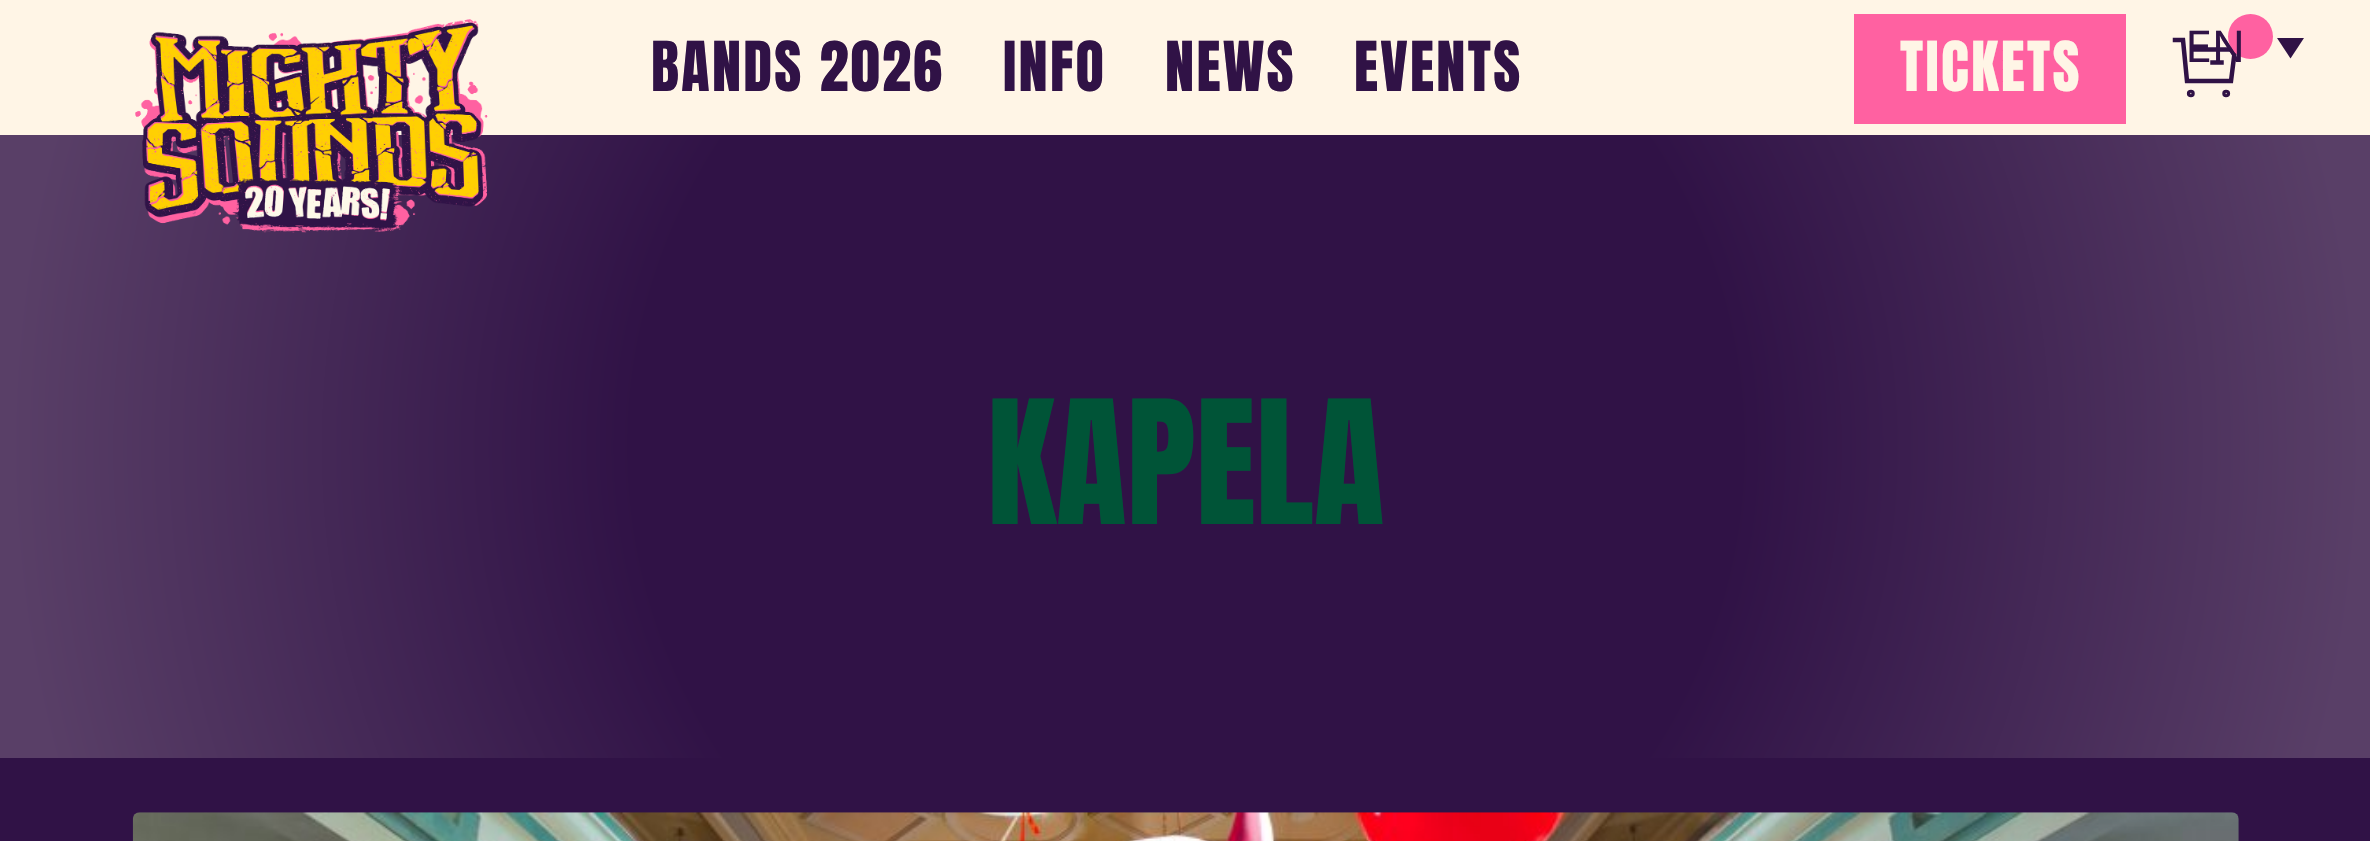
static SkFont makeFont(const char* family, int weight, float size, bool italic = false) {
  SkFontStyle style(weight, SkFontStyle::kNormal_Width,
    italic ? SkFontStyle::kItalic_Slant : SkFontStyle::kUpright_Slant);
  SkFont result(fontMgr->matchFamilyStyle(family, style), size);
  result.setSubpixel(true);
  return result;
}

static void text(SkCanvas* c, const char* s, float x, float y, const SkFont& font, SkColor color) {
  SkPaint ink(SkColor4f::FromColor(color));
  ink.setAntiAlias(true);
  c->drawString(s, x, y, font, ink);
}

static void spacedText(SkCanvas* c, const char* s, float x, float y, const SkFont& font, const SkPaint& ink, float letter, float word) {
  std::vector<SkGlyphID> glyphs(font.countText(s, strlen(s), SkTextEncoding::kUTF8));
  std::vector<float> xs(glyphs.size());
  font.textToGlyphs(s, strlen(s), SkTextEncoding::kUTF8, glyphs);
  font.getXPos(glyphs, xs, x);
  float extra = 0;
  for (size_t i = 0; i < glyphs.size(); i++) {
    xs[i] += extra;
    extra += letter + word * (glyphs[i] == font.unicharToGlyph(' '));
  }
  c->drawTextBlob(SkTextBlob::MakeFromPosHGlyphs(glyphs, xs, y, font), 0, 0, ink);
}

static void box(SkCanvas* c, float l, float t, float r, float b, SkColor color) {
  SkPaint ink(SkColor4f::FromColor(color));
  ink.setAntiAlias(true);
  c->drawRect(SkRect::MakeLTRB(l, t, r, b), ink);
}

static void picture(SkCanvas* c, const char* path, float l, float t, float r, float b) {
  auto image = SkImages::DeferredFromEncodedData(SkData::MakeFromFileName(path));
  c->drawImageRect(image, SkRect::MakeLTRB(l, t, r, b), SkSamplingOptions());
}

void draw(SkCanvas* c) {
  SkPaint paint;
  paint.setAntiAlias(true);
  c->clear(0xff301246);
  box(c, 0, 0, 2370, 135, 0xfffff5e6);
  {
    const SkColor colors[] = {0xff301246, 0xff593f67};
    const float stops[] = {0.45f, 0.96f};
    paint.setShader(SkGradientShader::MakeRadial({1186, 447}, 1226, colors, stops, 2, SkTileMode::kClamp));
    paint.setAlpha(255);
  }
  c->drawRect(SkRect::MakeLTRB(0, 135, 2370, 758), paint);
  picture(c, "img_01.png", 135, 19, 488, 233);
  SkFont face1 = makeFont("Anton", 400, 58.5f);
  paint.setShader(nullptr);
  paint.setColor(0xff301246);
  spacedText(c, "BANDS 2026", 651, 91, face1, paint, 2.25f, 0);
  spacedText(c, "INFO", 1003, 91, face1, paint, 2.25f, 0);
  spacedText(c, "NEWS", 1165, 91, face1, paint, 2.25f, 0);
  spacedText(c, "EVENTS", 1354, 91, face1, paint, 2.25f, 0);
  box(c, 1854, 14, 2126, 124, 0xffff61a1);
  paint.setColor(0xfffff5e6);
  spacedText(c, "TICKETS", 1900, 91, face1, paint, 2.25f, 0);
  paint.setStyle(SkPaint::kStroke_Style);
  paint.setStrokeWidth(4.5f);
  paint.setStrokeCap(SkPaint::kSquare_Cap);
  paint.setColor(0xff301246);
  c->drawPath(SkPathBuilder().moveTo(2212.5f, 62.5f).lineTo(2221.5f, 62.5f).moveTo(2193.5f, 49.5f).lineTo(2235, 49.5f).lineTo(2231, 81).lineTo(2187, 81).lineTo(2183, 40).lineTo(2175, 40).moveTo(2191, 92).cubicTo(2193, 92, 2193, 95, 2191, 95).cubicTo(2188.5f, 95, 2188.5f, 92, 2191, 92).close().moveTo(2226, 92).cubicTo(2228.5f, 92, 2228.5f, 95, 2226, 95).cubicTo(2224, 95, 2224, 92, 2226, 92).close().detach(), paint);
  paint.setStyle(SkPaint::kFill_Style);
  paint.setColor(0xffff61a1);
  c->drawCircle(2250.5f, 36.5f, 22.5f, paint);
  SkFont face2 = makeFont("Inter", 400, 43);
  paint.setColor(0xff301246);
  spacedText(c, "EN", 2186, 62, face2, paint, 1, 0);
  c->drawPath(SkPathBuilder().moveTo(2277, 38).lineTo(2304, 38).lineTo(2290.5f, 58.5f).close().detach(), paint);
  SkFont face3 = makeFont("Anton", 400, 146);
  text(c, "KAPELA", 987, 524, face3, 0xff005437);
  picture(c, "img_02.png", 132, 812, 2239, 841);
}
